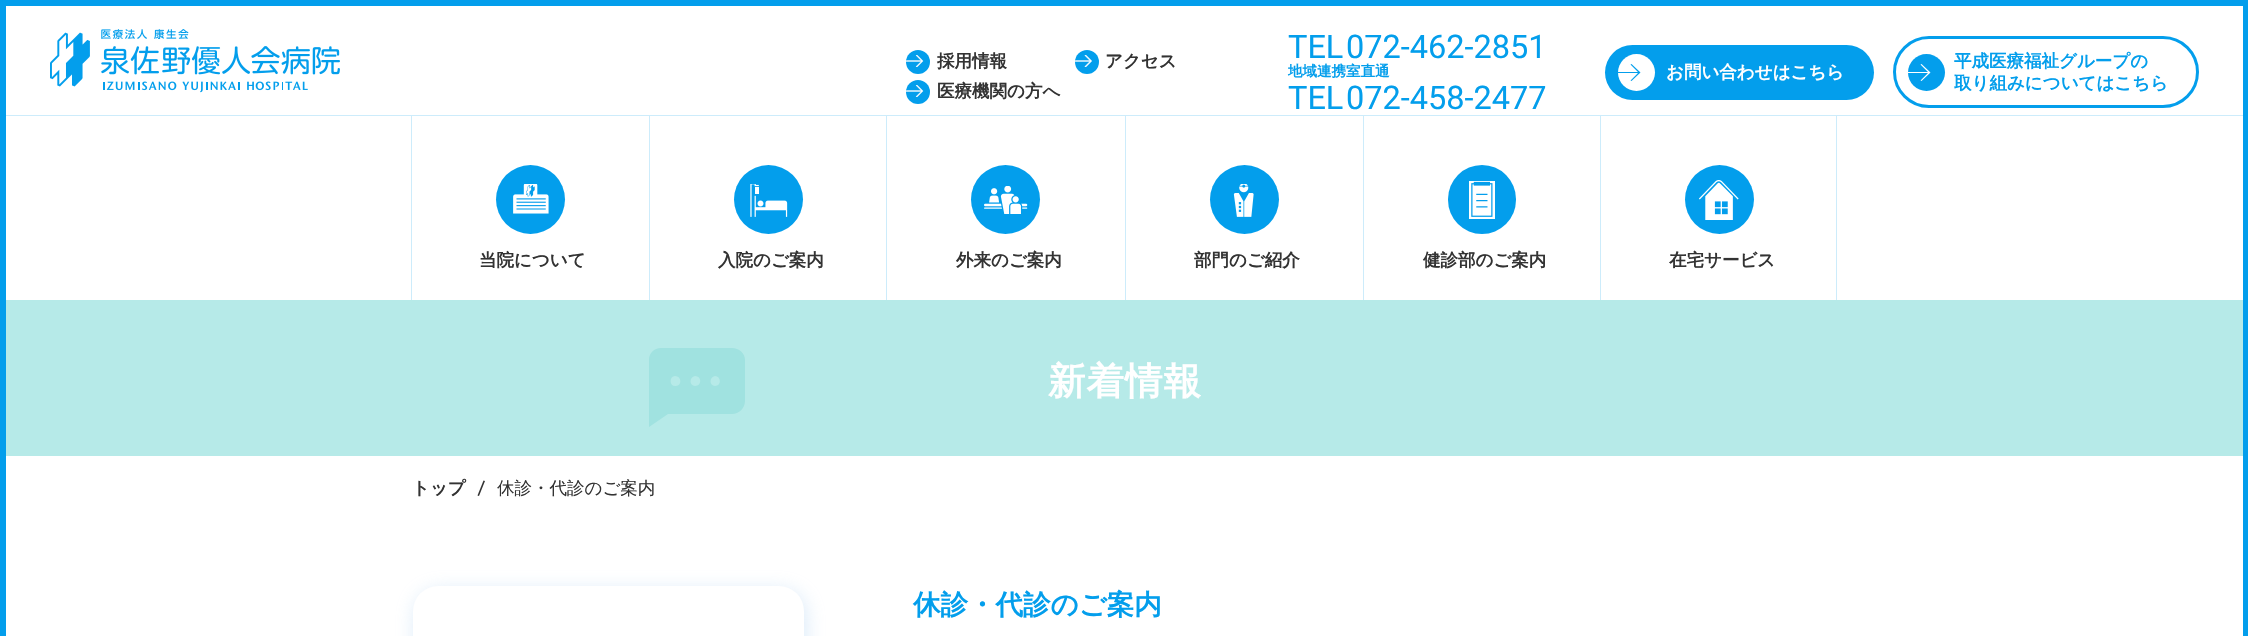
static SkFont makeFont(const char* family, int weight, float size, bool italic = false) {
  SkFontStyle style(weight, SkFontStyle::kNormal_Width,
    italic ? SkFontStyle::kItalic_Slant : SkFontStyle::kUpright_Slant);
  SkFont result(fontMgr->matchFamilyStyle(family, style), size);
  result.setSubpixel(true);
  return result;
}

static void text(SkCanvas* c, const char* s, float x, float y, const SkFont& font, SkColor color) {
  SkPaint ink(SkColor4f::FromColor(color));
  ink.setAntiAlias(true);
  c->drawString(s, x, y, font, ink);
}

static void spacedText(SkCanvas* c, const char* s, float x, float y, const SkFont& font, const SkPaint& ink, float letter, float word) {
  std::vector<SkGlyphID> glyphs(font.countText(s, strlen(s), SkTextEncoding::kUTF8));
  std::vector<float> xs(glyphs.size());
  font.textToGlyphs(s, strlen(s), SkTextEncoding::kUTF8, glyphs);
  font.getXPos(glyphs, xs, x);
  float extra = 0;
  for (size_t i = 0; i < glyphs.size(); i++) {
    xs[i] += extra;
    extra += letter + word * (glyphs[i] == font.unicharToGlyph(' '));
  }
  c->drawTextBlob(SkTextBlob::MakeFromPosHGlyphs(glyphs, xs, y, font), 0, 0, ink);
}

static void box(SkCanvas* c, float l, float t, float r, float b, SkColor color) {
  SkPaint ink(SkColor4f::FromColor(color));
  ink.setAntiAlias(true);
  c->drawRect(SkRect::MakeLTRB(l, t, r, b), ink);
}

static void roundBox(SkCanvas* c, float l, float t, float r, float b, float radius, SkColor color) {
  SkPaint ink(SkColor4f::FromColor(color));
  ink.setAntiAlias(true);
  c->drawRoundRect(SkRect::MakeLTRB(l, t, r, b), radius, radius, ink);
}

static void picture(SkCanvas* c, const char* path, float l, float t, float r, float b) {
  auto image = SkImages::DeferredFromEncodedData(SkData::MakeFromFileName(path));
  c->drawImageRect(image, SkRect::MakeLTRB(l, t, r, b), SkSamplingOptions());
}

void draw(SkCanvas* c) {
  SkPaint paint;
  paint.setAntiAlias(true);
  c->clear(0xffffffff);
  box(c, 0, 115, 2248, 116, 0xffcdecfb);
  box(c, 0, 0, 6, 636, 0xff039eec);
  box(c, 0, 0, 2248, 6, 0xff039eec);
  picture(c, "img_01.png", 50, 29, 340, 93);
  paint.setColor(0xff039eec);
  c->drawCircle(918, 62, 12, paint);
  picture(c, "img_02.png", 906, 55, 924, 67);
  SkFont face1 = makeFont("WenQuanYi Zen Hei", 700, 17.5f);
  text(c, "採用情報", 937, 67, face1, 0xff333333);
  c->drawCircle(1087, 62, 12, paint);
  picture(c, "img_03.png", 1075, 55, 1092, 67);
  text(c, "アクセス", 1105, 67, face1, 0xff333333);
  c->drawCircle(918, 92, 12, paint);
  picture(c, "img_02.png", 906, 85, 924, 97);
  text(c, "医療機関の方へ", 937, 97, face1, 0xff333333);
  SkFont face2 = makeFont("Roboto", 400, 32.5f);
  text(c, "TEL", 1288, 58, face2, 0xff039eec);
  text(c, "072-462-2851", 1346, 58, face2, 0xff039eec);
  SkFont face3 = makeFont("WenQuanYi Zen Hei", 700, 14.5f);
  text(c, "地域連携室直通", 1288, 76, face3, 0xff039eec);
  text(c, "TEL", 1288, 109, face2, 0xff039eec);
  text(c, "072-458-2477", 1346, 109, face2, 0xff039eec);
  roundBox(c, 1605, 45, 1874, 100, 27.5f, 0xff039eec);
  paint.setColor(0xffffffff);
  c->drawCircle(1636.5f, 72.5f, 18.5f, paint);
  paint.setColor(0xff039eec);
  c->drawPath(SkPathBuilder().moveTo(1640.5f, 72.5f).lineTo(1631.5f, 81).lineTo(1630.5f, 80.5f).lineTo(1638, 73).lineTo(1618, 73).lineTo(1618, 72).lineTo(1638, 72).lineTo(1630.5f, 64.5f).lineTo(1631.5f, 64).close().detach(), paint);
  text(c, "お問い合わせはこちら", 1666, 78, face1, 0xffffffff);
  paint.setStyle(SkPaint::kStroke_Style);
  paint.setStrokeWidth(3);
  c->drawRoundRect(SkRect::MakeLTRB(1894.5f, 37.5f, 2197.5f, 106.5f), 34.5f, 34.5f, paint);
  paint.setStyle(SkPaint::kFill_Style);
  c->drawCircle(1926.5f, 72.5f, 18.5f, paint);
  paint.setColor(0xffffffff);
  c->drawPath(SkPathBuilder().moveTo(1930.5f, 72.5f).lineTo(1921.5f, 81).lineTo(1920.5f, 80.5f).lineTo(1928, 73).lineTo(1908, 73).lineTo(1908, 72).lineTo(1928, 72).lineTo(1920.5f, 64.5f).lineTo(1921.5f, 64).close().detach(), paint);
  text(c, "平成医療福祉グループの", 1954, 67, face1, 0xff039eec);
  text(c, "取り組みについてはこちら", 1954, 89, face1, 0xff039eec);
  box(c, 2243, 0, 2248, 636, 0xff039eec);
  box(c, 411, 116, 412, 300, 0xffcdecfb);
  paint.setColor(0xff039eec);
  c->drawCircle(530.5f, 199.5f, 34.5f, paint);
  picture(c, "img_04.png", 513, 184, 549, 214);
  text(c, "当院について", 479, 266, face1, 0xff333333);
  box(c, 649, 116, 650, 300, 0xffcdecfb);
  c->drawCircle(768.5f, 199.5f, 34.5f, paint);
  picture(c, "img_05.png", 750, 184, 788, 217);
  text(c, "入院のご案内", 718, 266, face1, 0xff333333);
  box(c, 886, 116, 887, 300, 0xffcdecfb);
  c->drawCircle(1005.5f, 199.5f, 34.5f, paint);
  picture(c, "img_06.png", 984, 186, 1028, 214);
  text(c, "外来のご案内", 956, 266, face1, 0xff333333);
  box(c, 1125, 116, 1126, 300, 0xffcdecfb);
  c->drawCircle(1244.5f, 199.5f, 34.5f, paint);
  picture(c, "img_07.png", 1233, 184, 1254, 217);
  text(c, "部門のご紹介", 1194, 266, face1, 0xff333333);
  box(c, 1363, 116, 1364, 300, 0xffcdecfb);
  roundBox(c, 1448, 165, 1516, 234, 34, 0xff039eec);
  picture(c, "img_08.png", 1469, 181, 1495, 219);
  text(c, "健診部のご案内", 1423, 266, face1, 0xff333333);
  box(c, 1600, 116, 1601, 300, 0xffcdecfb);
  box(c, 1836, 116, 1837, 300, 0xffcdecfb);
  c->drawCircle(1719.5f, 199.5f, 34.5f, paint);
  picture(c, "img_09.png", 1699, 180, 1739, 220);
  text(c, "在宅サービス", 1669, 266, face1, 0xff333333);
  box(c, 6, 300, 2243, 456, 0xffb6eae8);
  paint.setColor(0xffa0e2e0);
  c->drawPath(SkPathBuilder().moveTo(732, 348).lineTo(661, 348).cubicTo(654, 348, 649, 353, 649, 360).lineTo(649, 427).lineTo(668, 414).lineTo(732, 414).cubicTo(739, 414, 745, 408, 745, 401).lineTo(745, 360).cubicTo(745, 353, 739, 348, 732, 348).close().moveTo(675, 376).cubicTo(682, 376, 682, 386, 676, 386).cubicTo(669, 387, 669, 376, 675, 376).close().moveTo(695, 386).cubicTo(689, 386, 689, 377, 695, 376).cubicTo(702, 376, 702, 386, 695, 386).close().moveTo(715, 386).cubicTo(709, 386, 709, 377, 715, 376).cubicTo(721, 376, 722, 386, 715, 386).close().detach(), paint);
  SkFont face4 = makeFont("WenQuanYi Zen Hei", 700, 37.5f);
  paint.setColor(0xffffffff);
  spacedText(c, "新着情報", 1048, 394, face4, paint, 1, 0);
  text(c, "トップ", 412, 494, face1, 0xff333333);
  paint.setColor(0xff333333);
  c->drawPath(SkPathBuilder().moveTo(483.5f, 480.5f).lineTo(485, 481).lineTo(479, 496).lineTo(477.5f, 495.5f).close().detach(), paint);
  SkFont face5 = makeFont("WenQuanYi Zen Hei", 500, 17.5f);
  text(c, "休診・代診のご案内", 497, 494, face5, 0xff333333);
  paint.setColor(0x66a2caf0);
  paint.setMaskFilter(SkMaskFilter::MakeBlur(kNormal_SkBlurStyle, 9.5f));
  c->drawRoundRect(SkRect::MakeLTRB(415, 590, 806, 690), 25, 25, paint);
  paint.setMaskFilter(nullptr);
  roundBox(c, 413, 586, 804, 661, 25, 0xffffffff);
  SkFont face6 = makeFont("WenQuanYi Zen Hei", 700, 27.5f);
  text(c, "休診・代診のご案内", 913, 614, face6, 0xff039eec);
}
